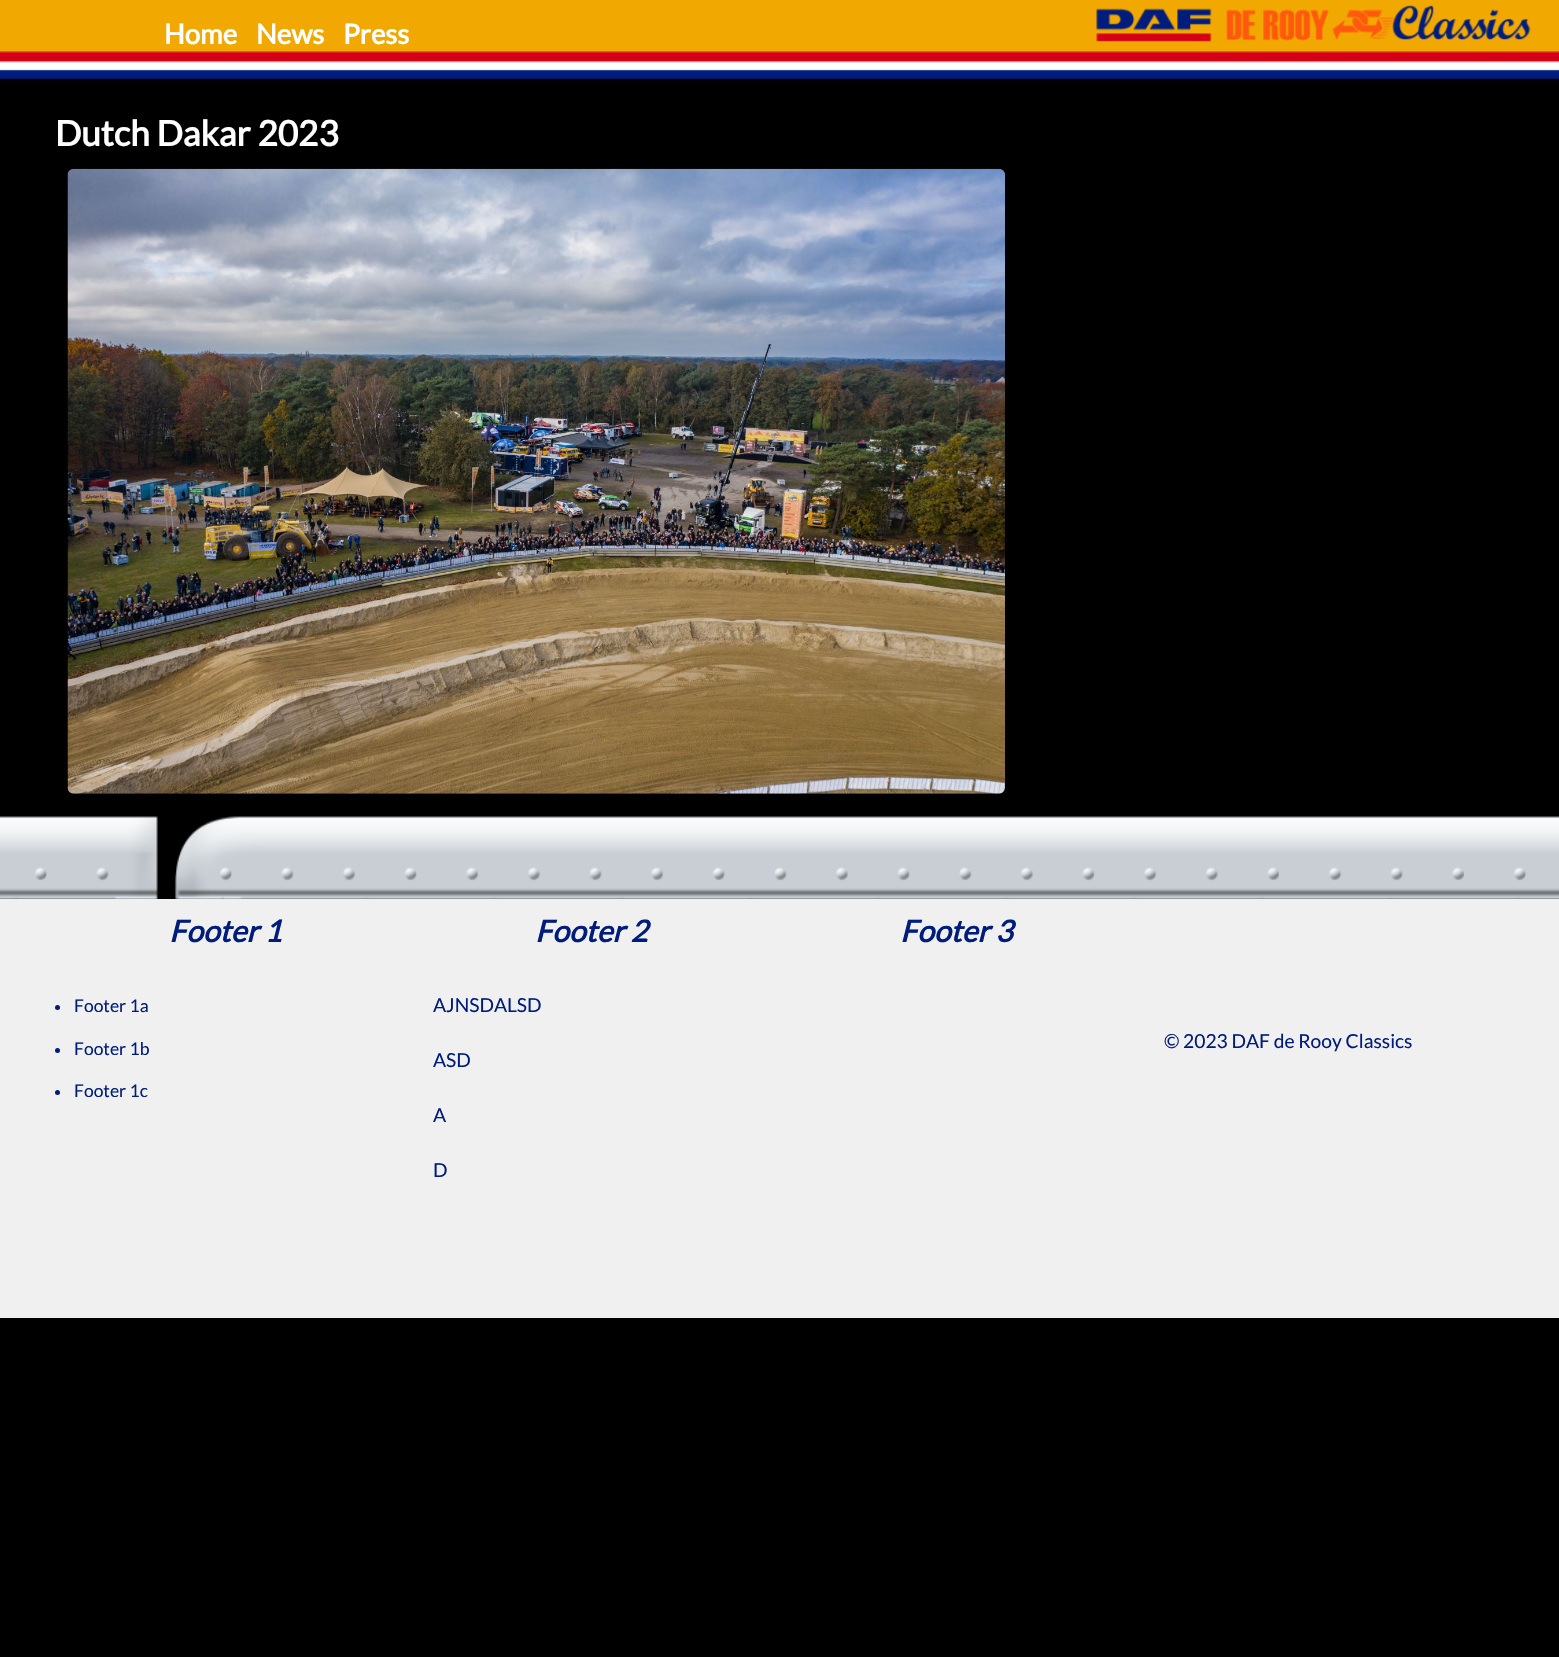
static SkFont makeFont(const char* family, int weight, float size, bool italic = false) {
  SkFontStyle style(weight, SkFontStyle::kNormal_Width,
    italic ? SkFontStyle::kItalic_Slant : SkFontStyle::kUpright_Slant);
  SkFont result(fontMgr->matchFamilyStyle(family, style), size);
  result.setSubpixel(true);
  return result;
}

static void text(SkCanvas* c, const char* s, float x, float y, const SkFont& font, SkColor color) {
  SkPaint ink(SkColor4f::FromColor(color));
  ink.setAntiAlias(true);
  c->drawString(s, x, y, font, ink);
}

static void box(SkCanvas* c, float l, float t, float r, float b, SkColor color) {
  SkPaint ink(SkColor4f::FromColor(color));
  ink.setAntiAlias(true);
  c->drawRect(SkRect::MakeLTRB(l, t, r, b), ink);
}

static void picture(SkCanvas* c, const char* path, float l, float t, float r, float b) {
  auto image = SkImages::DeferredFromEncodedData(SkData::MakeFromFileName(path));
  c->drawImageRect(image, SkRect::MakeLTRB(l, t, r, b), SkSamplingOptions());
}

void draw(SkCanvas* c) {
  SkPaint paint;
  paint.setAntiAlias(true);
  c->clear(0xff000000);
  picture(c, "img_01.png", 0, 0, 1559, 79);
  SkFont face1 = makeFont("Lato", 700, 27.5f);
  text(c, "Home", 164, 44, face1, 0xffffffff);
  text(c, "News", 256, 44, face1, 0xffffffff);
  text(c, "Press", 343, 44, face1, 0xffffffff);
  picture(c, "img_02.png", 1096, 5, 1531, 42);
  picture(c, "img_03.png", 0, 816, 1559, 899);
  SkFont face2 = makeFont("Lato", 700, 35);
  text(c, "Dutch Dakar 2023", 55, 146, face2, 0xffffffff);
  picture(c, "img_04.png", 67, 168, 1005, 794);
  box(c, 0, 899, 1559, 1318, 0xfff0f0f0);
  SkFont face3 = makeFont("Lato", 700, 30, true);
  text(c, "Footer 1", 169, 942, face3, 0xff001d7e);
  paint.setColor(0xff001d7e);
  c->drawCircle(57.5f, 1007.5f, 2.5f, paint);
  SkFont face4 = makeFont("Lato", 400, 17.5f);
  text(c, "Footer 1a", 74, 1012, face4, 0xff001d7e);
  c->drawCircle(57.5f, 1050.5f, 2.5f, paint);
  text(c, "Footer 1b", 74, 1055, face4, 0xff001d7e);
  c->drawCircle(57.5f, 1092.5f, 2.5f, paint);
  text(c, "Footer 1c", 74, 1097, face4, 0xff001d7e);
  text(c, "Footer 2", 535, 942, face3, 0xff001d7e);
  SkFont face5 = makeFont("Lato", 400, 19.25f);
  text(c, "AJNSDALSD", 433, 1012, face5, 0xff001d7e);
  text(c, "ASD", 433, 1067, face5, 0xff001d7e);
  text(c, "A", 433, 1122, face5, 0xff001d7e);
  text(c, "D", 433, 1177, face5, 0xff001d7e);
  text(c, "Footer 3", 900, 942, face3, 0xff001d7e);
  text(c, "© 2023 DAF de Rooy Classics", 1164, 1048, face5, 0xff001d7e);
}
